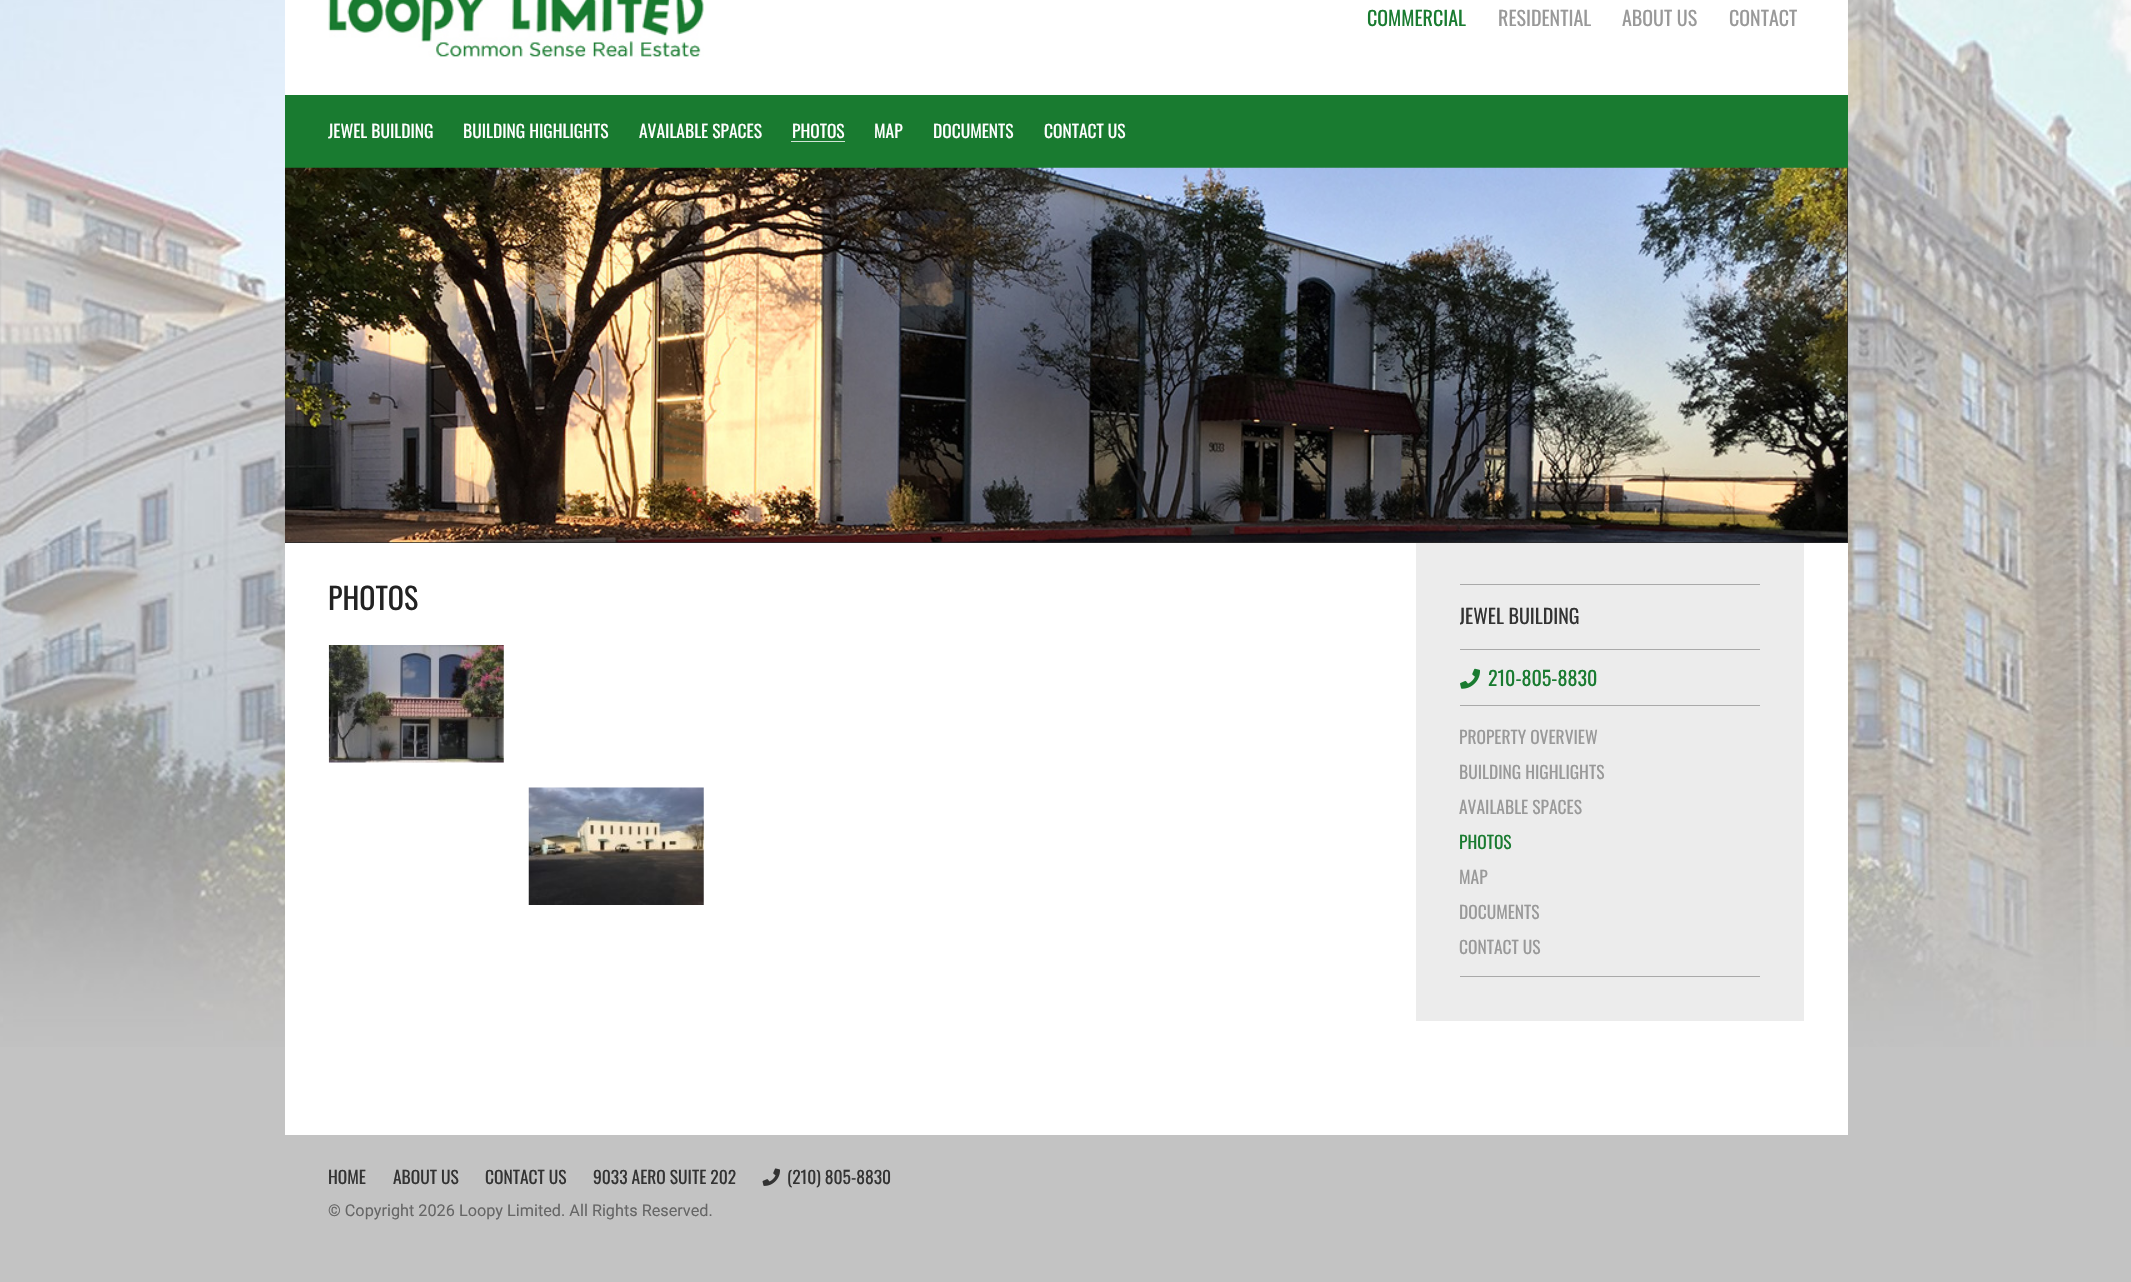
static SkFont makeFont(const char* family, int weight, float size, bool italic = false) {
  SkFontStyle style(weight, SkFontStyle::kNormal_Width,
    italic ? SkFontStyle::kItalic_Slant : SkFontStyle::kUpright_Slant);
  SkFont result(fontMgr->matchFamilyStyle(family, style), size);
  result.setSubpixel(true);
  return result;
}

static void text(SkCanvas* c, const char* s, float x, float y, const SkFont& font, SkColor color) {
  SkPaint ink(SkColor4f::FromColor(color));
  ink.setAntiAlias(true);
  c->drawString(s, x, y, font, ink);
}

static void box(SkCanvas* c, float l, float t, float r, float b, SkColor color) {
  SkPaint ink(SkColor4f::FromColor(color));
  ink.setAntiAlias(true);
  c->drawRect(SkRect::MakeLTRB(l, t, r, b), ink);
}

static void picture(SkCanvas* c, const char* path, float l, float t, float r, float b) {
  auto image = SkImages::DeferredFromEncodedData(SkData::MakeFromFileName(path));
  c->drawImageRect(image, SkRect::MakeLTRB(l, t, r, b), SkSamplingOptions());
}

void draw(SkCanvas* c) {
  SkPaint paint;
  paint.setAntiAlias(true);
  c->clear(0xffc3c3c3);
  picture(c, "img_01.png", 0, 0, 2131, 1047);
  box(c, 285, 0, 1848, 95, 0xffffffff);
  box(c, 285, 95, 1848, 168, 0xff197b30);
  picture(c, "img_02.png", 328, 0, 704, 57);
  SkFont face1 = makeFont("Oswald", 400, 20);
  text(c, "COMMERCIAL", 1367, 26, face1, 0xff197b30);
  text(c, "RESIDENTIAL", 1498, 26, face1, 0xff999999);
  text(c, "ABOUT US", 1622, 26, face1, 0xff999999);
  text(c, "CONTACT", 1729, 26, face1, 0xff999999);
  SkFont face2 = makeFont("Oswald", 400, 17.5f);
  text(c, "JEWEL BUILDING", 328, 138, face2, 0xffffffff);
  text(c, "BUILDING HIGHLIGHTS", 463, 138, face2, 0xffffffff);
  text(c, "AVAILABLE SPACES", 639, 138, face2, 0xffffffff);
  box(c, 791, 141, 845, 142, 0xffd1e5d6);
  text(c, "PHOTOS", 792, 138, face2, 0xffffffff);
  text(c, "MAP", 874, 138, face2, 0xffffffff);
  text(c, "DOCUMENTS", 933, 138, face2, 0xffffffff);
  text(c, "CONTACT US", 1044, 138, face2, 0xffffffff);
  box(c, 285, 168, 1848, 543, 0xff272727);
  picture(c, "img_03.png", 285, 167, 1848, 543);
  box(c, 285, 543, 1848, 1135, 0xffffffff);
  SkFont face3 = makeFont("Oswald", 400, 30);
  text(c, "PHOTOS", 328, 610, face3, 0xff222222);
  picture(c, "img_04.png", 328, 645, 504, 763);
  picture(c, "img_05.png", 528, 787, 704, 905);
  box(c, 1416, 543, 1804, 1021, 0xffececec);
  box(c, 1460, 584, 1760, 585, 0xffa9a9a9);
  box(c, 1460, 649, 1760, 650, 0xffa9a9a9);
  c->save();
  c->clipRect(SkRect::MakeLTRB(1460, 585, 1760, 649));
  text(c, "JEWEL BUILDING", 1459, 624, face1, 0xff333333);
  c->restore();
  picture(c, "img_06.png", 1460, 668, 1480, 689);
  text(c, "210-805-8830", 1488, 686, face1, 0xff197b30);
  box(c, 1460, 705, 1760, 706, 0xffa9a9a9);
  box(c, 1460, 976, 1760, 977, 0xffa9a9a9);
  text(c, "PROPERTY OVERVIEW", 1459, 744, face2, 0xff999999);
  text(c, "BUILDING HIGHLIGHTS", 1459, 779, face2, 0xff999999);
  text(c, "AVAILABLE SPACES", 1459, 814, face2, 0xff999999);
  text(c, "PHOTOS", 1459, 849, face2, 0xff197b30);
  text(c, "MAP", 1459, 884, face2, 0xff999999);
  text(c, "DOCUMENTS", 1459, 919, face2, 0xff999999);
  text(c, "CONTACT US", 1459, 954, face2, 0xff999999);
  text(c, "HOME", 328, 1184, face2, 0xff333333);
  text(c, "ABOUT US", 393, 1184, face2, 0xff333333);
  text(c, "CONTACT US", 485, 1184, face2, 0xff333333);
  text(c, "9033 AERO SUITE 202", 593, 1184, face2, 0xff333333);
  picture(c, "img_07.png", 762, 1168, 780, 1186);
  text(c, "(210) 805-8830", 787, 1184, face2, 0xff333333);
  SkFont face4 = makeFont("Roboto", 400, 16.25f);
  text(c, "© Copyright 2026 Loopy Limited. All Rights Reserved.", 328, 1216, face4, 0xff666666);
}
